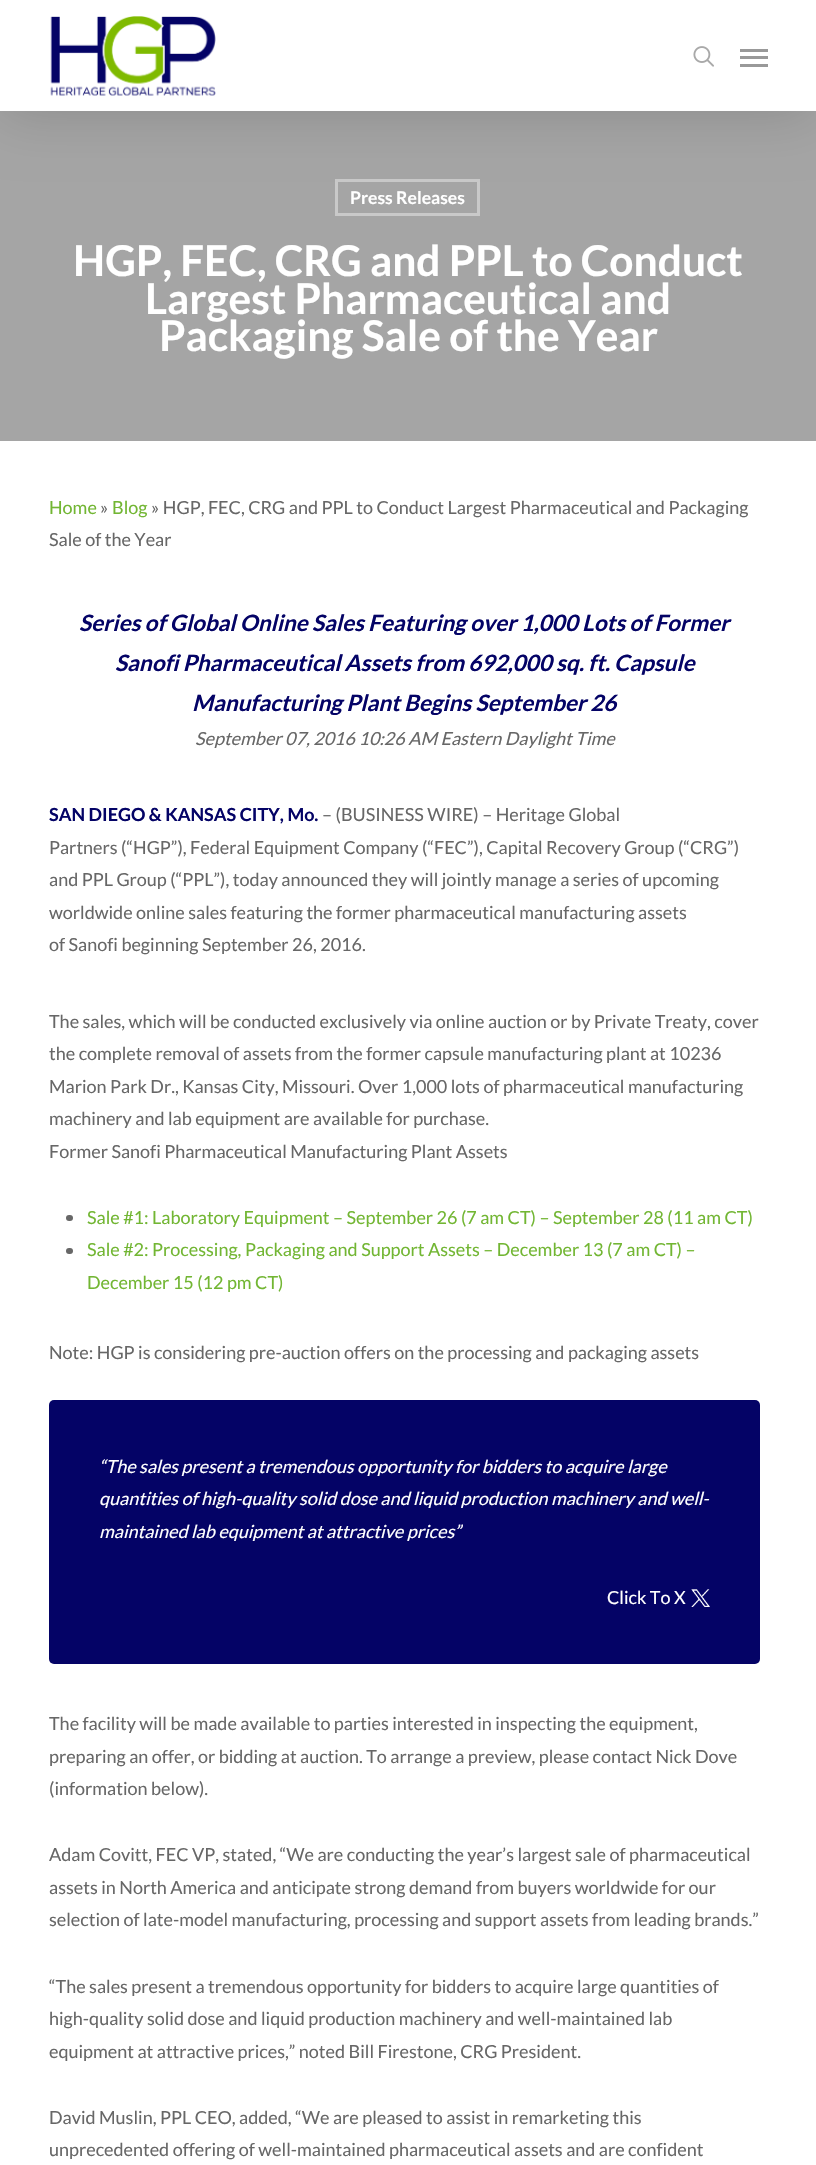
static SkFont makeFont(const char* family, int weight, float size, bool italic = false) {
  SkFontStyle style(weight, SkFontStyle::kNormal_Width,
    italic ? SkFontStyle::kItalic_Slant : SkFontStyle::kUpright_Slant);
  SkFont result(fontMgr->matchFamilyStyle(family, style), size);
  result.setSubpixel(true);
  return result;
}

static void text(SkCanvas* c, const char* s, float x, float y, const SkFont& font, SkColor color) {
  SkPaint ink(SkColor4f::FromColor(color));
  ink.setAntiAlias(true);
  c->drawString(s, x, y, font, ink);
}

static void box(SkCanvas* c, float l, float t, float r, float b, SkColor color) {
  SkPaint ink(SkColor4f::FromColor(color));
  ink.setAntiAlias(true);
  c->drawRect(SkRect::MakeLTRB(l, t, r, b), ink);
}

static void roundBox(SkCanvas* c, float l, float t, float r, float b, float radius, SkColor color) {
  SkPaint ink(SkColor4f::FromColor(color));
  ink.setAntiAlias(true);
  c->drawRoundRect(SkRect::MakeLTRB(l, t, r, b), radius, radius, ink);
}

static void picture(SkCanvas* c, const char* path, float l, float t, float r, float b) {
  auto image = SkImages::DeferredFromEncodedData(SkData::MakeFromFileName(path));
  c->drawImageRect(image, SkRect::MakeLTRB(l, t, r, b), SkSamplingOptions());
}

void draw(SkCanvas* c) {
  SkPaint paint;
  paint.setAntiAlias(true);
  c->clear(0xffffffff);
  box(c, 0, 111, 816, 441, 0xffa5a5a5);
  paint.setStyle(SkPaint::kStroke_Style);
  paint.setStrokeWidth(3);
  paint.setColor(0xffc9c9c9);
  c->drawRect(SkRect::MakeLTRB(336.5f, 180.5f, 478.5f, 214.5f), paint);
  paint.setStyle(SkPaint::kFill_Style);
  paint.setColor(0x26000000);
  paint.setMaskFilter(SkMaskFilter::MakeBlur(kNormal_SkBlurStyle, 28));
  c->drawRect(SkRect::MakeLTRB(0, 4, 816, 115), paint);
  paint.setMaskFilter(nullptr);
  box(c, 0, 0, 816, 111, 0xffffffff);
  picture(c, "img_01.png", 50, 16, 216, 96);
  picture(c, "img_02.png", 693, 46, 714, 67);
  box(c, 740, 49, 768, 52, 0xff999999);
  box(c, 740, 64, 768, 67, 0xff999999);
  box(c, 740, 56, 768, 59, 0xff999999);
  SkFont face1 = makeFont("Lato", 700, 17.5f);
  text(c, "Press Releases", 350, 204, face1, 0xffffffff);
  SkFont face2 = makeFont("Lato", 700, 42.5f);
  text(c, "HGP, FEC, CRG and PPL to Conduct", 73, 276, face2, 0xffffffff);
  text(c, "Largest Pharmaceutical and", 145, 314, face2, 0xffffffff);
  text(c, "Packaging Sale of the Year", 159, 351, face2, 0xffffffff);
  SkFont face3 = makeFont("Lato", 400, 18);
  text(c, "Home", 49, 514, face3, 0xff72b633);
  text(c, "»", 100, 514, face3, 0xff676767);
  text(c, "Blog", 112, 514, face3, 0xff72b633);
  text(c, "» HGP, FEC, CRG and PPL to Conduct Largest Pharmaceutical and Packaging", 151, 514, face3, 0xff676767);
  text(c, "Sale of the Year", 49, 546, face3, 0xff676767);
  SkFont face4 = makeFont("Lato", 700, 22.5f, true);
  text(c, "Series of Global Online Sales Featuring over 1,000 Lots of Former", 79, 631, face4, 0xff040366);
  text(c, "Sanofi Pharmaceutical Assets from 692,000 sq. ft. Capsule", 115, 671, face4, 0xff040366);
  text(c, "Manufacturing Plant Begins September 26", 192, 711, face4, 0xff040366);
  SkFont face5 = makeFont("Lato", 400, 18, true);
  text(c, "September 07, 2016 10:26 AM Eastern Daylight Time", 195, 745, face5, 0xff676767);
  SkFont face6 = makeFont("Lato", 700, 18);
  text(c, "SAN DIEGO & KANSAS CITY, Mo.", 49, 821, face6, 0xff040366);
  text(c, "– (BUSINESS WIRE) – Heritage Global", 322, 821, face3, 0xff676767);
  text(c, "Partners (“HGP”), Federal Equipment Company (“FEC”), Capital Recovery Group (“CRG”)", 49, 854, face3, 0xff676767);
  text(c, "and PPL Group (“PPL”), today announced they will jointly manage a series of upcoming", 49, 886, face3, 0xff676767);
  text(c, "worldwide online sales featuring the former pharmaceutical manufacturing assets", 49, 919, face3, 0xff676767);
  text(c, "of Sanofi beginning September 26, 2016.", 49, 951, face3, 0xff676767);
  text(c, "The sales, which will be conducted exclusively via online auction or by Private Treaty, cover", 49, 1028, face3, 0xff676767);
  text(c, "the complete removal of assets from the former capsule manufacturing plant at 10236", 49, 1060, face3, 0xff676767);
  text(c, "Marion Park Dr., Kansas City, Missouri. Over 1,000 lots of pharmaceutical manufacturing", 49, 1093, face3, 0xff676767);
  text(c, "machinery and lab equipment are available for purchase.", 49, 1125, face3, 0xff676767);
  text(c, "Former Sanofi Pharmaceutical Manufacturing Plant Assets", 49, 1158, face3, 0xff676767);
  roundBox(c, 66, 1215, 73, 1221, 3, 0xff676767);
  text(c, "Sale #1: Laboratory Equipment – September 26 (7 am CT) – September 28 (11 am CT)", 87, 1224, face3, 0xff72b633);
  roundBox(c, 66, 1248, 73, 1254, 3, 0xff676767);
  text(c, "Sale #2: Processing, Packaging and Support Assets – December 13 (7 am CT) –", 87, 1256, face3, 0xff72b633);
  text(c, "December 15 (12 pm CT)", 87, 1289, face3, 0xff72b633);
  text(c, "Note: HGP is considering pre-auction offers on the processing and packaging assets", 49, 1359, face3, 0xff676767);
  roundBox(c, 49, 1400, 760, 1664, 5, 0xff040366);
  text(c, "“The sales present a tremendous opportunity for bidders to acquire large", 99, 1473, face5, 0xffffffff);
  text(c, "quantities of high-quality solid dose and liquid production machinery and well-", 99, 1505, face5, 0xffffffff);
  text(c, "maintained lab equipment at attractive prices”", 99, 1538, face5, 0xffffffff);
  text(c, "Click To X", 607, 1604, face3, 0xffffffff);
  picture(c, "img_03.png", 691, 1589, 710, 1607);
  text(c, "The facility will be made available to parties interested in inspecting the equipment,", 49, 1730, face3, 0xff676767);
  text(c, "preparing an offer, or bidding at auction. To arrange a preview, please contact Nick Dove", 49, 1763, face3, 0xff676767);
  text(c, "(information below).", 49, 1795, face3, 0xff676767);
  text(c, "Adam Covitt, FEC VP, stated, “We are conducting the year’s largest sale of pharmaceutical", 49, 1861, face3, 0xff676767);
  text(c, "assets in North America and anticipate strong demand from buyers worldwide for our", 49, 1894, face3, 0xff676767);
  text(c, "selection of late-model manufacturing, processing and support assets from leading brands.”", 49, 1926, face3, 0xff676767);
  text(c, "“The sales present a tremendous opportunity for bidders to acquire large quantities of", 49, 1993, face3, 0xff676767);
  text(c, "high-quality solid dose and liquid production machinery and well-maintained lab", 49, 2025, face3, 0xff676767);
  text(c, "equipment at attractive prices,” noted Bill Firestone, CRG President.", 49, 2058, face3, 0xff676767);
  text(c, "David Muslin, PPL CEO, added, “We are pleased to assist in remarketing this", 49, 2124, face3, 0xff676767);
  text(c, "unprecedented offering of well-maintained pharmaceutical assets and are confident", 49, 2156, face3, 0xff676767);
}
